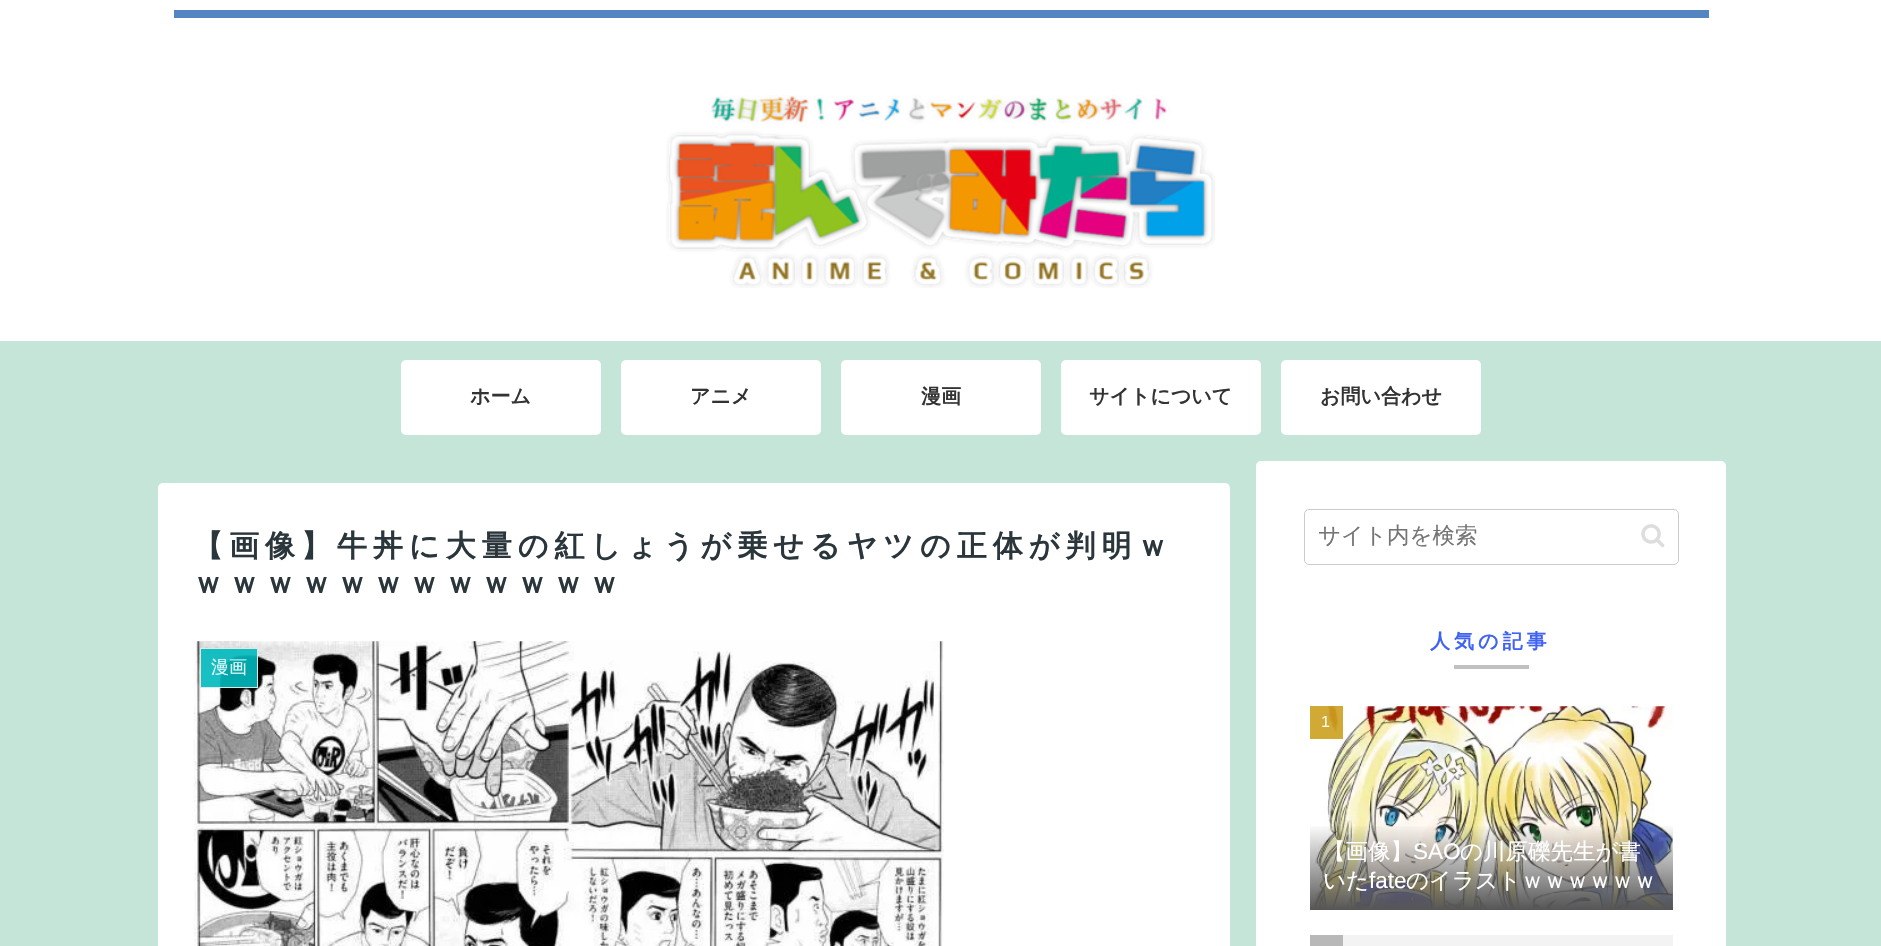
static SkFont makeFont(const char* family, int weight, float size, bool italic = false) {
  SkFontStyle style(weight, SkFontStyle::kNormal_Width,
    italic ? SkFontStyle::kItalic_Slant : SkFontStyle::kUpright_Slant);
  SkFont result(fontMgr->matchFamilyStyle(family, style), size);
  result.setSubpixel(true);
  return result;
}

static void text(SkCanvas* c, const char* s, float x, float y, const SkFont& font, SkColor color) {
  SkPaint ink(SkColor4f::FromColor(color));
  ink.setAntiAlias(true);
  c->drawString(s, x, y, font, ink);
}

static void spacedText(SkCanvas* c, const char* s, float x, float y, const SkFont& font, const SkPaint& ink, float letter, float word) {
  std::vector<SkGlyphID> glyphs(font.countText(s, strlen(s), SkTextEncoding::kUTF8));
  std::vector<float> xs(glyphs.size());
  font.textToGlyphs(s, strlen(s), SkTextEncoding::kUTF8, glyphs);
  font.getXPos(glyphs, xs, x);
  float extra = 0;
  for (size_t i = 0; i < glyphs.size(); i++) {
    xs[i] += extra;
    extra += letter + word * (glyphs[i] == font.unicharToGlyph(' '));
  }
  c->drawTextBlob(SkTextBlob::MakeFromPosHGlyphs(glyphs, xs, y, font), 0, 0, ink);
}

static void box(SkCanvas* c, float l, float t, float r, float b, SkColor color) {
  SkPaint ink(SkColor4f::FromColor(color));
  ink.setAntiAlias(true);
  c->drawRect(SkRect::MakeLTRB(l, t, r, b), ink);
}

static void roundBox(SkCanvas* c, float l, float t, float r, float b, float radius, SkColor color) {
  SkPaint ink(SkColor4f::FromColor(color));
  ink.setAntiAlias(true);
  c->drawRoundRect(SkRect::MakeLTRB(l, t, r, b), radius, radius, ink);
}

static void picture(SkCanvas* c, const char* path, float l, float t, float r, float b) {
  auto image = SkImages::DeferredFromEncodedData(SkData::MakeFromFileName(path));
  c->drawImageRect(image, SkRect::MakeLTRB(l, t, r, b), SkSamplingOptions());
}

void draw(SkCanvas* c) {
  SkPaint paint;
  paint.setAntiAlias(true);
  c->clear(0xffc6e5d9);
  box(c, 0, 0, 1881, 341, 0xffffffff);
  box(c, 174, 10, 1709, 18, 0xff5385c2);
  picture(c, "img_01.png", 666, 95, 1215, 288);
  roundBox(c, 401, 360, 601, 435, 5, 0xffffffff);
  SkFont face1 = makeFont("WenQuanYi Zen Hei", 700, 20);
  text(c, "ホーム", 470, 403, face1, 0xff333333);
  roundBox(c, 621, 360, 821, 435, 5, 0xffffffff);
  text(c, "アニメ", 690, 403, face1, 0xff333333);
  roundBox(c, 841, 360, 1041, 435, 5, 0xffffffff);
  text(c, "漫画", 921, 403, face1, 0xff333333);
  roundBox(c, 1061, 360, 1261, 435, 5, 0xffffffff);
  text(c, "サイトについて", 1089, 403, face1, 0xff333333);
  roundBox(c, 1281, 360, 1481, 435, 5, 0xffffffff);
  text(c, "お問い合わせ", 1320, 403, face1, 0xff333333);
  roundBox(c, 158, 483, 1230, 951, 5, 0xffffffff);
  SkFont face2 = makeFont("WenQuanYi Zen Hei", 700, 30);
  paint.setColor(0xff2a363b);
  spacedText(c, "【画像】牛丼に大量の紅しょうが乗せるヤツの正体が判明ｗ", 193, 556, face2, paint, 6, 0);
  spacedText(c, "ｗｗｗｗｗｗｗｗｗｗｗｗ", 193, 593, face2, paint, 6, 0);
  picture(c, "img_02.png", 193, 641, 944, 946);
  box(c, 200, 648, 258, 688, 0xe600b9bd);
  paint.setStyle(SkPaint::kStroke_Style);
  paint.setStrokeWidth(1);
  paint.setColor(0xe6eeeeee);
  c->drawRect(SkRect::MakeLTRB(200.5f, 648.5f, 257.5f, 687.5f), paint);
  SkFont face3 = makeFont("WenQuanYi Zen Hei", 500, 18);
  text(c, "漫画", 211, 673, face3, 0xffe6f7f7);
  roundBox(c, 1256, 461, 1726, 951, 5, 0xffffffff);
  paint.setColor(0xffcccccc);
  c->drawRoundRect(SkRect::MakeLTRB(1304.5f, 509.5f, 1678.5f, 564.5f), 4.5f, 4.5f, paint);
  SkFont face4 = makeFont("WenQuanYi Zen Hei", 500, 22.5f);
  text(c, "サイト内を検索", 1318, 543, face4, 0xff757575);
  picture(c, "img_03.png", 1641, 524, 1665, 548);
  paint.setStyle(SkPaint::kFill_Style);
  paint.setColor(0xff3f63f4);
  spacedText(c, "人気の記事", 1430, 648, face1, paint, 4, 0);
  box(c, 1454, 665, 1529, 669, 0xffc0c0c0);
  picture(c, "img_04.png", 1313, 706, 1673, 909);
  box(c, 1310, 706, 1343, 739, 0xe6cca11f);
  SkFont face5 = makeFont("Liberation Sans", 400, 16);
  text(c, "1", 1321, 727, face5, 0xfffaf7eb);
  {
    const SkColor colors[] = {0x00555555, 0xff555555};
    const float stops[] = {0, 1};
    const SkPoint ends[] = {{1491, 824}, {1491, 910}};
    paint.setShader(SkGradientShader::MakeLinear(ends, colors, stops, 2, SkTileMode::kClamp));
    paint.setAlpha(255);
  }
  c->drawRect(SkRect::MakeLTRB(1310, 826, 1673, 910), paint);
  text(c, "【画像】", 1323, 859, face4, 0xffffffff);
  SkFont face6 = makeFont("Liberation Sans", 400, 22.5f);
  text(c, "SAO", 1413, 859, face6, 0xffffffff);
  text(c, "の川原礫先生が書", 1460, 859, face4, 0xffffffff);
  text(c, "いた", 1323, 888, face4, 0xffffffff);
  text(c, "fate", 1369, 888, face6, 0xffffffff);
  text(c, "のイラストｗｗｗｗｗｗ", 1406, 888, face4, 0xffffffff);
  box(c, 1310, 935, 1343, 946, 0xffb8b8b9);
  box(c, 1343, 935, 1673, 946, 0xfff3f3f3);
}
